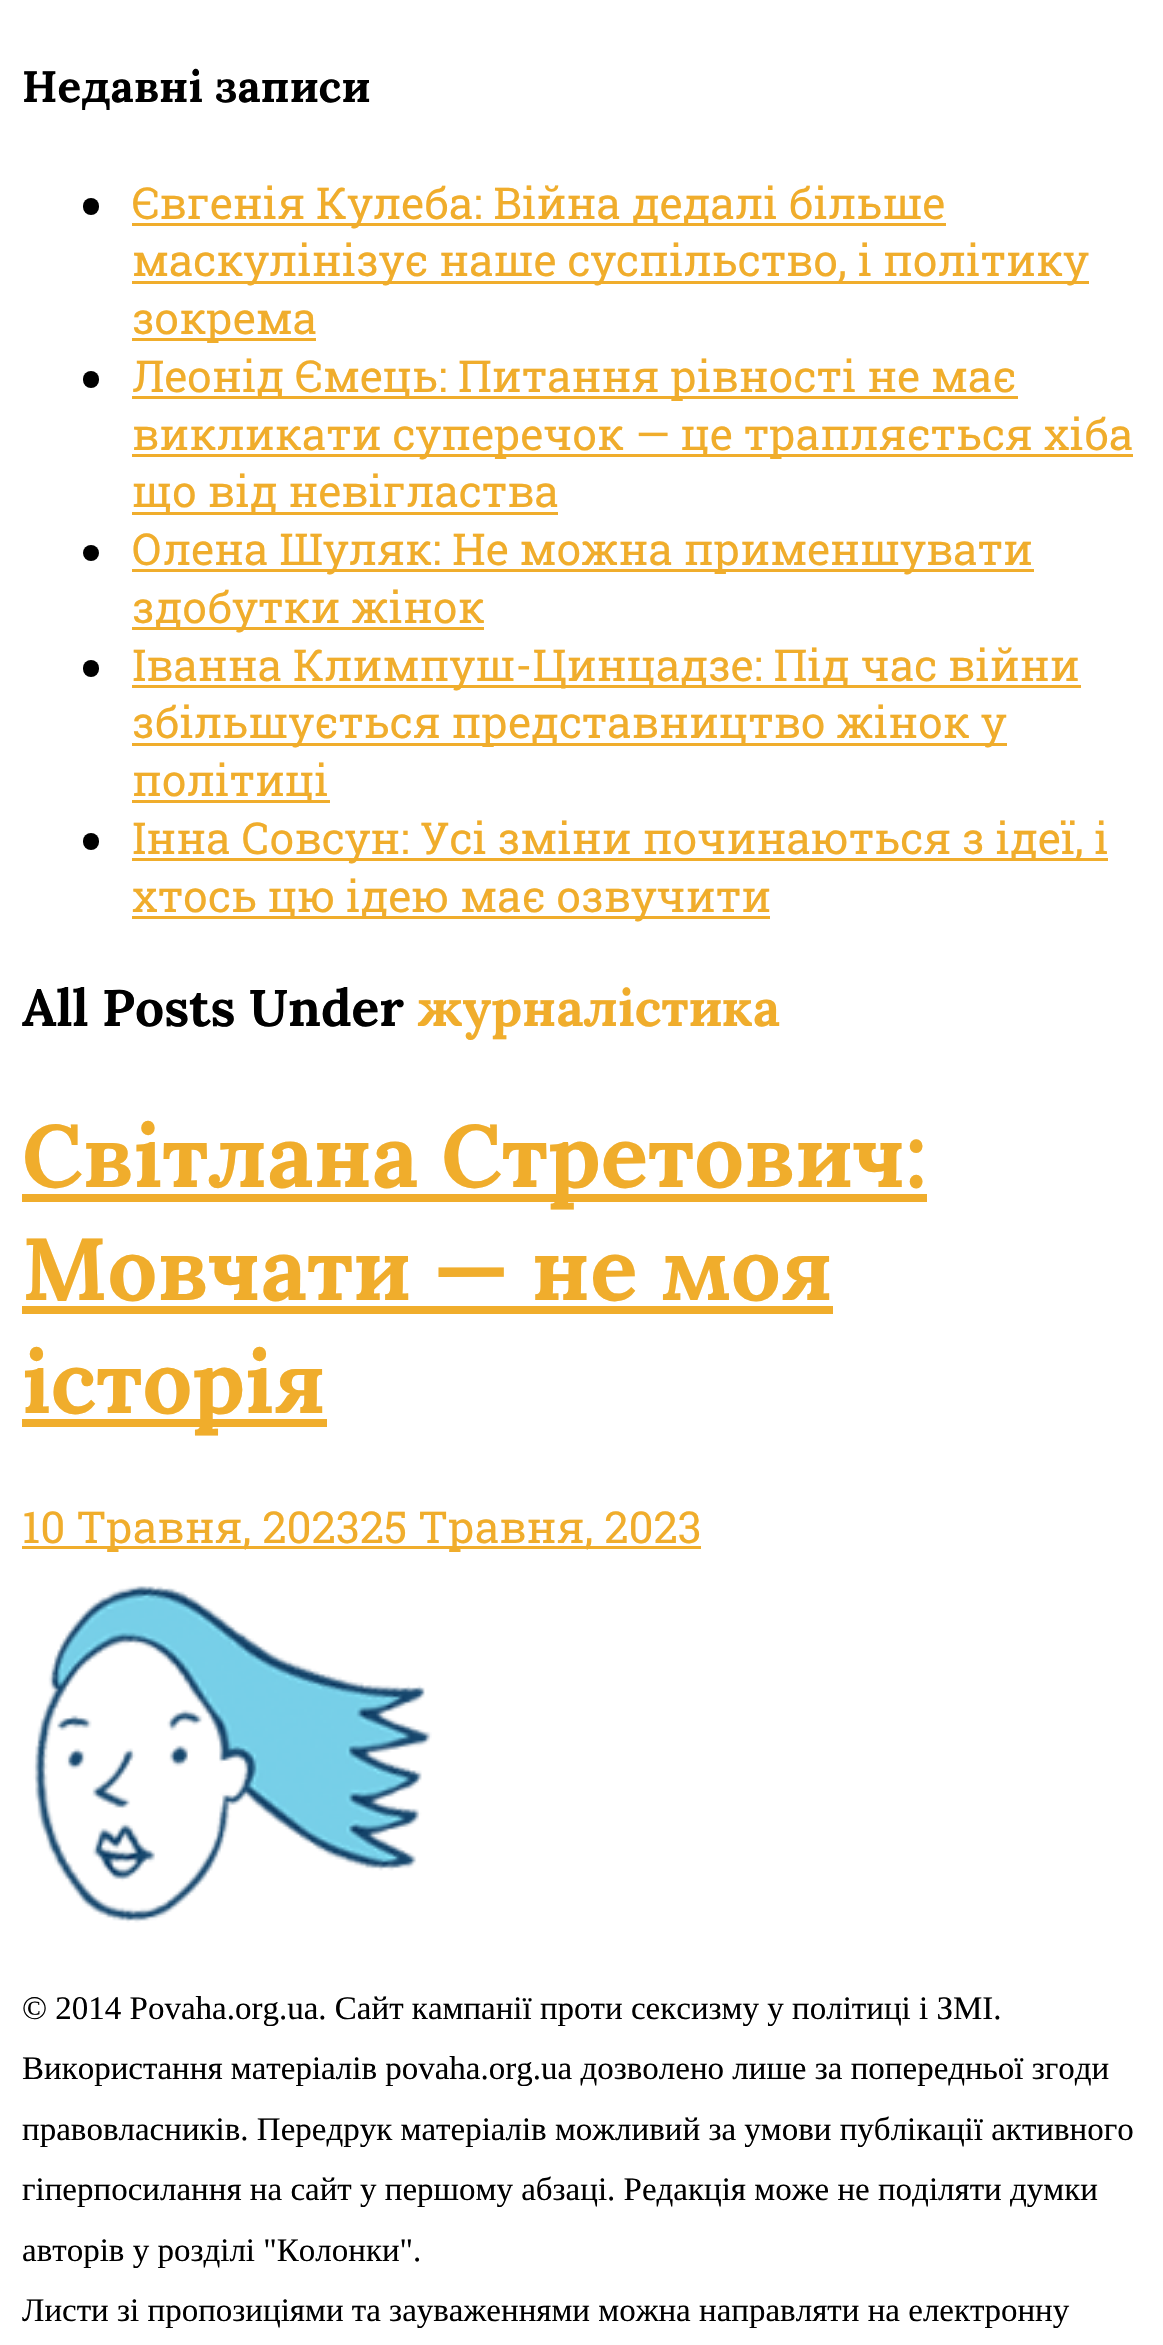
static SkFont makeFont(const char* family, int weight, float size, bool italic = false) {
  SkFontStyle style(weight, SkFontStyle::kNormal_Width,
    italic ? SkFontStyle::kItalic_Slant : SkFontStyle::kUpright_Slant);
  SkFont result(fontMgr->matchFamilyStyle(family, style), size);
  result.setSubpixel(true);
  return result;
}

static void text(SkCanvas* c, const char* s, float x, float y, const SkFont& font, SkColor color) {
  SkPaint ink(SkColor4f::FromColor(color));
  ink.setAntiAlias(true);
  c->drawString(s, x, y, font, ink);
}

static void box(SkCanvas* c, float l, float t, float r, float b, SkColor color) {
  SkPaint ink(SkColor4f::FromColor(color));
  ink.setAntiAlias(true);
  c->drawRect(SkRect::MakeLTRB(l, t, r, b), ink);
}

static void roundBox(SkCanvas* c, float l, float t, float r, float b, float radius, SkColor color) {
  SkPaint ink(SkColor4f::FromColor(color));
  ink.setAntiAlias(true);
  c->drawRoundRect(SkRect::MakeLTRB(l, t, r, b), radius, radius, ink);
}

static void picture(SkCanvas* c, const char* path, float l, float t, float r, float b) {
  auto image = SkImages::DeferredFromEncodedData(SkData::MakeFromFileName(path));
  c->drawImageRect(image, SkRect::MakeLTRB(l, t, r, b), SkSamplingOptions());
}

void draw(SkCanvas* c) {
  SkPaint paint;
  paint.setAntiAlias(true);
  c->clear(0xffffffff);
  SkFont face1 = makeFont("Lora", 700, 44);
  text(c, "Недавні записи", 22, 102, face1, 0xff000000);
  roundBox(c, 83, 198, 99, 215, 8, 0xff000000);
  box(c, 132, 223, 946, 226, 0xfff0ad2c);
  SkFont face2 = makeFont("Roboto Slab", 400, 44);
  text(c, "Євгенія Кулеба: Війна дедалі більше", 132, 219, face2, 0xfff0ad2c);
  box(c, 132, 281, 1089, 284, 0xfff0ad2c);
  text(c, "маскулінізує наше суспільство, і політику", 132, 276, face2, 0xfff0ad2c);
  box(c, 132, 338, 316, 341, 0xfff0ad2c);
  text(c, "зокрема", 132, 334, face2, 0xfff0ad2c);
  roundBox(c, 83, 371, 99, 388, 8, 0xff000000);
  box(c, 132, 396, 1018, 399, 0xfff0ad2c);
  text(c, "Леонід Ємець: Питання рівності не має", 132, 392, face2, 0xfff0ad2c);
  box(c, 132, 454, 1133, 457, 0xfff0ad2c);
  text(c, "викликати суперечок — це трапляється хіба", 132, 450, face2, 0xfff0ad2c);
  box(c, 132, 512, 558, 515, 0xfff0ad2c);
  text(c, "що від невігластва", 132, 507, face2, 0xfff0ad2c);
  paint.setColor(0xff000000);
  c->drawCircle(91, 553, 8, paint);
  box(c, 132, 569, 1034, 572, 0xfff0ad2c);
  text(c, "Олена Шуляк: Не можна применшувати", 132, 565, face2, 0xfff0ad2c);
  box(c, 132, 627, 484, 630, 0xfff0ad2c);
  text(c, "здобутки жінок", 132, 623, face2, 0xfff0ad2c);
  roundBox(c, 83, 660, 99, 677, 8, 0xff000000);
  box(c, 132, 685, 1081, 688, 0xfff0ad2c);
  text(c, "Іванна Климпуш-Цинцадзе: Під час війни", 132, 681, face2, 0xfff0ad2c);
  box(c, 132, 743, 1007, 746, 0xfff0ad2c);
  text(c, "збільшується представництво жінок у", 132, 738, face2, 0xfff0ad2c);
  box(c, 132, 800, 330, 803, 0xfff0ad2c);
  text(c, "політиці", 132, 796, face2, 0xfff0ad2c);
  roundBox(c, 83, 833, 99, 850, 8, 0xff000000);
  box(c, 132, 858, 1108, 861, 0xfff0ad2c);
  text(c, "Інна Совсун: Усі зміни починаються з ідеї, і", 132, 854, face2, 0xfff0ad2c);
  box(c, 132, 916, 770, 919, 0xfff0ad2c);
  text(c, "хтось цю ідею має озвучити", 132, 912, face2, 0xfff0ad2c);
  SkFont face3 = makeFont("Lora", 700, 51.5f);
  text(c, "All Posts Under", 22, 1026, face3, 0xff000000);
  text(c, "журналістика", 417, 1026, face3, 0xfff0ad2c);
  box(c, 22, 1194, 927, 1202, 0xfff0ad2c);
  SkFont face4 = makeFont("Lora", 700, 88);
  text(c, "Світлана Стретович:", 22, 1187, face4, 0xfff0ad2c);
  text(c, "Мовчати — не моя", 22, 1300, face4, 0xfff0ad2c);
  box(c, 22, 1306, 833, 1314, 0xfff0ad2c);
  box(c, 22, 1419, 327, 1427, 0xfff0ad2c);
  text(c, "історія", 22, 1413, face4, 0xfff0ad2c);
  box(c, 22, 1546, 701, 1549, 0xfff0ad2c);
  text(c, "10 Травня, 202325 Травня, 2023", 22, 1543, face2, 0xfff0ad2c);
  picture(c, "img_01.png", 33, 1585, 432, 1923);
  SkFont face5 = makeFont("Liberation Serif", 400, 33);
  text(c, "© 2014 Povaha.org.ua. Сайт кампанії проти сексизму у політиці і ЗМІ.", 22, 2019, face5, 0xff000000);
  text(c, "Використання матеріалів povaha.org.ua дозволено лише за попередньої згоди", 22, 2079, face5, 0xff000000);
  text(c, "правовласників. Передрук матеріалів можливий за умови публікації активного", 22, 2140, face5, 0xff000000);
  text(c, "гіперпосилання на сайт у першому абзаці. Редакція може не поділяти думки", 22, 2200, face5, 0xff000000);
  text(c, "авторів у розділі \"Колонки\".", 22, 2261, face5, 0xff000000);
  text(c, "Листи зі пропозиціями та зауваженнями можна направляти на електронну", 22, 2321, face5, 0xff000000);
}
